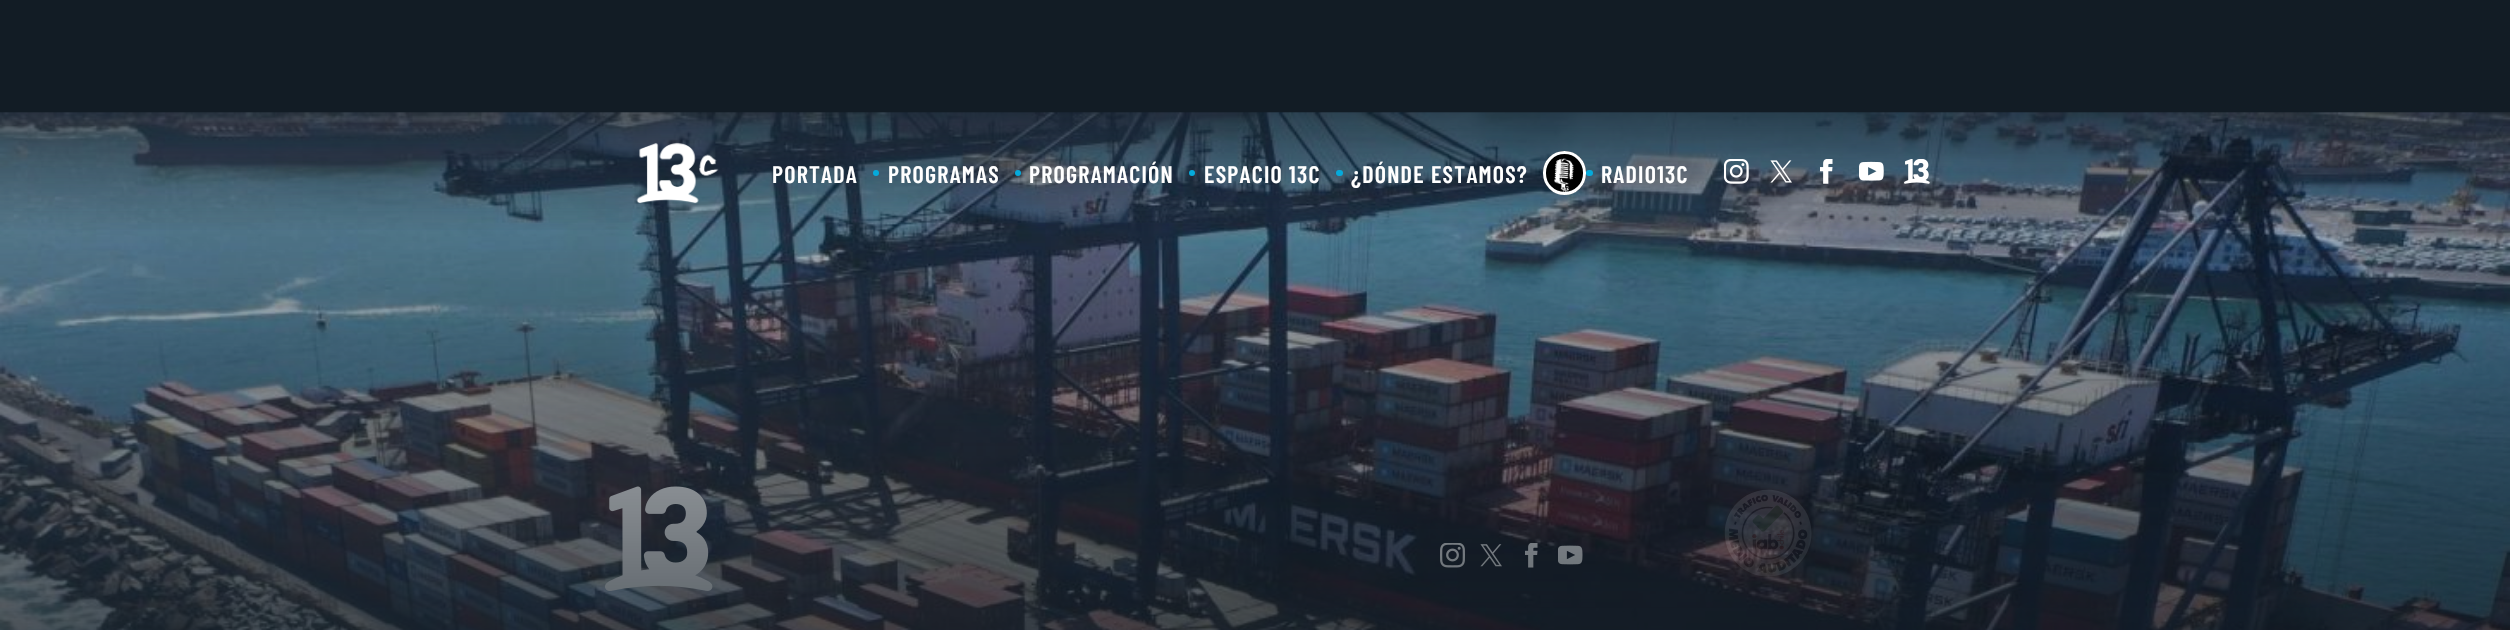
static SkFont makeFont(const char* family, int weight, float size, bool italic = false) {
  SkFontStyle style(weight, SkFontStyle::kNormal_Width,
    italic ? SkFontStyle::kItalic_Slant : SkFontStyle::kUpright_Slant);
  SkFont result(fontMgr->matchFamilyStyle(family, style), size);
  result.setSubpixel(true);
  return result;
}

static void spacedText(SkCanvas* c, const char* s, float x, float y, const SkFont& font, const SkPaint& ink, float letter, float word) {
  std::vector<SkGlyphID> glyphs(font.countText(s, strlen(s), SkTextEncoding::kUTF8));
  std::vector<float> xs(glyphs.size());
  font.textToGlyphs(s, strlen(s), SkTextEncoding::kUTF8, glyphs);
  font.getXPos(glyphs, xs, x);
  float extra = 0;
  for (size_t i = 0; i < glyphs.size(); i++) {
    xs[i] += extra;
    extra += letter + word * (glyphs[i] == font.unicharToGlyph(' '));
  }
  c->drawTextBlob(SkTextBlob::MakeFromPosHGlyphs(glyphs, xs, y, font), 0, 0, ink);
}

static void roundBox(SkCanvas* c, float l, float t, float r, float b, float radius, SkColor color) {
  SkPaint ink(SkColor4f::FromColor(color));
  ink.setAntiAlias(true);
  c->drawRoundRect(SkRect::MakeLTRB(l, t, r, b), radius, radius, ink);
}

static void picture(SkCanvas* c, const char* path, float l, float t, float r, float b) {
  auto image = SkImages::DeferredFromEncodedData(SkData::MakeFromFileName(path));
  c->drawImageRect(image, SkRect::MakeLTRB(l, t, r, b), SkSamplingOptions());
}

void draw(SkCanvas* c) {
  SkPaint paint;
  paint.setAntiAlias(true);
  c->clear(0xff121c25);
  picture(c, "img_14.png", 1723, 488, 1814, 579);
  picture(c, "img_01.png", 0, 112, 2510, 630);
  picture(c, "img_09.png", 605, 486, 713, 591);
  picture(c, "img_10.png", 1440, 543, 1465, 568);
  picture(c, "img_11.png", 1480, 544, 1502, 567);
  picture(c, "img_12.png", 1525, 543, 1538, 568);
  picture(c, "img_13.png", 1558, 545, 1583, 565);
  {
    const SkColor colors[] = {0x00121c25, 0xff121c25};
    const float stops[] = {0, 1};
    const SkPoint ends[] = {{1255, 112}, {1255, 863}};
    paint.setShader(SkGradientShader::MakeLinear(ends, colors, stops, 2, SkTileMode::kClamp));
    paint.setAlpha(255);
  }
  c->drawRect(SkRect::MakeLTRB(0, 128, 2510, 630), paint);
  {
    const SkColor colors[] = {0xa6121c25, 0x00121c25};
    const float stops[] = {0, 1};
    const SkPoint ends[] = {{1255, 112}, {1255, 234}};
    paint.setShader(SkGradientShader::MakeLinear(ends, colors, stops, 2, SkTileMode::kClamp));
    paint.setAlpha(255);
  }
  c->drawRect(SkRect::MakeLTRB(0, 113, 2510, 230), paint);
  picture(c, "img_02.png", 636, 142, 719, 204);
  SkFont face1 = makeFont("Barlow Condensed", 600, 24);
  paint.setShader(nullptr);
  paint.setColor(0xffffffff);
  spacedText(c, "PORTADA", 772, 183, face1, paint, 1.25f, 0);
  paint.setColor(0xff05aadb);
  c->drawCircle(876, 173, 3, paint);
  paint.setColor(0xffffffff);
  spacedText(c, "PROGRAMAS", 888, 183, face1, paint, 1.25f, 0);
  paint.setColor(0xff05aadb);
  c->drawCircle(1018, 173, 3, paint);
  paint.setColor(0xffffffff);
  spacedText(c, "PROGRAMACIÓN", 1029, 183, face1, paint, 1.25f, 0);
  paint.setColor(0xff05aadb);
  c->drawCircle(1192, 173, 3, paint);
  paint.setColor(0xffffffff);
  spacedText(c, "ESPACIO 13C", 1204, 183, face1, paint, 1.25f, 0);
  roundBox(c, 1336, 170, 1343, 176, 3, 0xff05aadb);
  spacedText(c, "¿DÓNDE ESTAMOS?", 1351, 183, face1, paint, 1.25f, 0);
  roundBox(c, 1543, 151, 1586, 195, 21.5f, 0xff000000);
  picture(c, "img_03.png", 1554, 158, 1574, 195);
  paint.setStyle(SkPaint::kStroke_Style);
  paint.setStrokeWidth(3);
  c->drawRoundRect(SkRect::MakeLTRB(1544.5f, 152.5f, 1584.5f, 193.5f), 20, 20, paint);
  roundBox(c, 1586, 170, 1593, 176, 3, 0xff05aadb);
  paint.setStyle(SkPaint::kFill_Style);
  spacedText(c, "RADIO13C", 1601, 183, face1, paint, 1.25f, 0);
  picture(c, "img_04.png", 1724, 159, 1749, 184);
  picture(c, "img_05.png", 1770, 160, 1792, 183);
  picture(c, "img_06.png", 1820, 159, 1833, 184);
  picture(c, "img_07.png", 1859, 161, 1884, 181);
  picture(c, "img_08.png", 1904, 159, 1930, 184);
}
